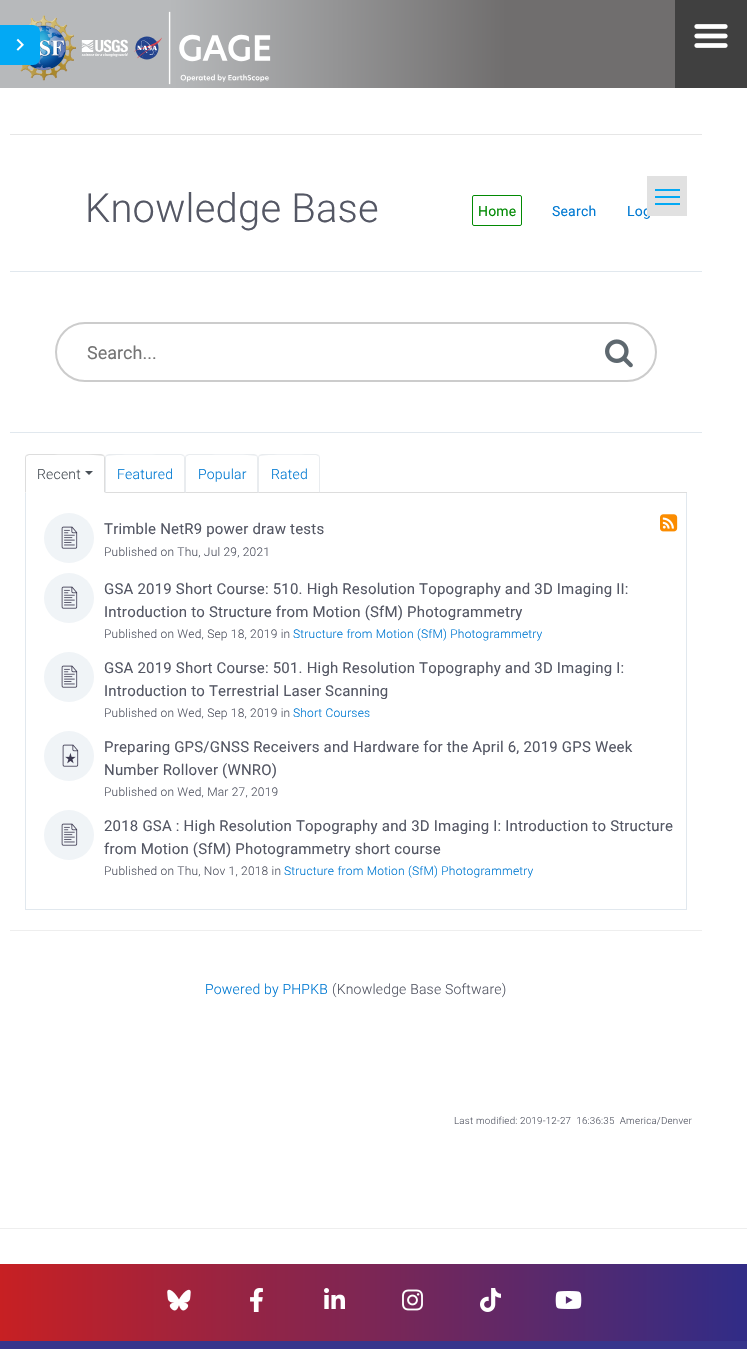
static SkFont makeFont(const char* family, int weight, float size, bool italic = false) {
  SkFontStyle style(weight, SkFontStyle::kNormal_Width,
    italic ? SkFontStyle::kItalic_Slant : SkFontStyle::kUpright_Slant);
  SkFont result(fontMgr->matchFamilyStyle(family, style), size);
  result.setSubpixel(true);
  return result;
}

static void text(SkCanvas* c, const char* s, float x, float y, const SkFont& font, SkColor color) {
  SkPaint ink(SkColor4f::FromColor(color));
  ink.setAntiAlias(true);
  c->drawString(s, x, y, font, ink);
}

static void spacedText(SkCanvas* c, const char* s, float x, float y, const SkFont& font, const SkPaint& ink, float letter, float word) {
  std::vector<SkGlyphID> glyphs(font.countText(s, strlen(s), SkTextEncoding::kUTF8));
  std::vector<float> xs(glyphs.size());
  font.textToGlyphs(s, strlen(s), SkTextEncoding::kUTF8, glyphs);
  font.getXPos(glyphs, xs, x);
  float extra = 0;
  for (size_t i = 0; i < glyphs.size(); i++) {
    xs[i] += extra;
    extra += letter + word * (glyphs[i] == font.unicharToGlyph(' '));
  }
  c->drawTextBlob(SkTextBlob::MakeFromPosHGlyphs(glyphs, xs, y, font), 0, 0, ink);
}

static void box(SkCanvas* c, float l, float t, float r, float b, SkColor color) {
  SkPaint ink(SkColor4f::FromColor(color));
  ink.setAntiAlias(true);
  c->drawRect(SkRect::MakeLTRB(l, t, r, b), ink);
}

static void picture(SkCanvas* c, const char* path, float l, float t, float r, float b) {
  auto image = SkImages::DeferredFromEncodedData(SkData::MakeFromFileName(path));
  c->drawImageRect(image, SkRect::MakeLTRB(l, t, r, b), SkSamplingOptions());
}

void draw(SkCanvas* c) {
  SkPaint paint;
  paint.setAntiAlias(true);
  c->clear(0xffffffff);
  {
    const SkColor colors[] = {0xffb7b9bb, 0xffb7b9bb, 0xff706e6e};
    const float stops[] = {0, 0.25f, 0.75f};
    const SkPoint ends[] = {{0, 44}, {675, 44}};
    paint.setShader(SkGradientShader::MakeLinear(ends, colors, stops, 3, SkTileMode::kClamp));
    paint.setAlpha(255);
  }
  c->drawRect(SkRect::MakeLTRB(0, 0, 675, 88), paint);
  picture(c, "img_01.png", 20, 11, 271, 85);
  box(c, 675, 0, 747, 88, 0xff404040);
  picture(c, "img_02.png", 694, 24, 728, 48);
  box(c, 10, 134, 702, 135, 0xffe6e6e6);
  SkFont face1 = makeFont("Roboto", 300, 40);
  paint.setShader(nullptr);
  paint.setColor(0xff545764);
  spacedText(c, "Knowledge Base", 85, 222, face1, paint, 0.2f, 0);
  paint.setStyle(SkPaint::kStroke_Style);
  paint.setStrokeWidth(1);
  paint.setColor(0xff018a03);
  c->drawRoundRect(SkRect::MakeLTRB(472.5f, 195.5f, 521.5f, 225.5f), 1.5f, 1.5f, paint);
  SkFont face2 = makeFont("Roboto", 400, 14);
  paint.setStyle(SkPaint::kFill_Style);
  spacedText(c, "Home", 478, 216, face2, paint, 0.2f, 0);
  paint.setColor(0xff0079d2);
  spacedText(c, "Search", 552, 216, face2, paint, 0.2f, 0);
  spacedText(c, "Log", 627, 216, face2, paint, 0.2f, 0);
  box(c, 647, 176, 687, 216, 0xffe1e1e1);
  box(c, 655, 196, 680, 198, 0xff03a9f4);
  box(c, 655, 189, 680, 191, 0xff03a9f4);
  box(c, 655, 203, 680, 205, 0xff03a9f4);
  box(c, 10, 271, 702, 272, 0xffe1e8ee);
  box(c, 10, 432, 702, 433, 0xffe1e8ee);
  paint.setStyle(SkPaint::kStroke_Style);
  paint.setStrokeWidth(2);
  paint.setColor(0xffcccccc);
  c->drawRoundRect(SkRect::MakeLTRB(56, 323, 656, 381), 29, 29, paint);
  SkFont face3 = makeFont("Roboto", 400, 18);
  text(c, "Search...", 87, 359, face3, 0xff757575);
  picture(c, "img_03.png", 605, 339, 633, 368);
  paint.setStyle(SkPaint::kFill_Style);
  paint.setColor(0xff03a9f4);
  c->drawPath(SkPathBuilder().moveTo(0, 25).lineTo(33, 25).cubicTo(37, 25, 40, 28, 40, 32).lineTo(40, 58).cubicTo(40, 62, 37, 65, 33, 65).lineTo(0, 65).close().detach(), paint);
  picture(c, "img_04.png", 16, 38, 24, 51);
  box(c, 105, 492, 687, 493, 0xffdddddd);
  paint.setColor(0xffdddddd);
  c->drawPath(SkPathBuilder().moveTo(29, 454).lineTo(26, 455).lineTo(27, 456).lineTo(29, 455).lineTo(41, 455).cubicTo(48, 455, 101, 454, 103, 456).lineTo(104, 455).lineTo(101, 454).close().detach(), paint);
  c->drawPath(SkPathBuilder().moveTo(105, 493).lineTo(105, 458).cubicTo(105, 457, 104.5f, 456, 104, 455).lineTo(103, 456).cubicTo(104, 456, 104, 457, 104, 458).lineTo(104, 492).close().detach(), paint);
  paint.setColor(0xffffffff);
  c->drawPath(SkPathBuilder().moveTo(105, 493).lineTo(104, 492).lineTo(26, 492).lineTo(25, 493).close().detach(), paint);
  paint.setColor(0xffdddddd);
  c->drawPath(SkPathBuilder().moveTo(25, 493).lineTo(26, 492).lineTo(26, 458).cubicTo(26, 457, 26, 456, 27, 456).lineTo(26, 455).cubicTo(25.5f, 456, 25, 457, 25, 458).close().detach(), paint);
  SkFont face4 = makeFont("Roboto", 300, 14);
  paint.setColor(0xff495057);
  spacedText(c, "Recent", 37, 479, face4, paint, 0.2f, 0);
  c->drawPath(SkPathBuilder().moveTo(85, 471).lineTo(93, 471).lineTo(89, 475).close().detach(), paint);
  paint.setColor(0xffe9ecef);
  c->drawPath(SkPathBuilder().moveTo(109, 454).lineTo(106, 455).lineTo(107, 456).cubicTo(109, 454, 162, 455, 169, 455).lineTo(181, 455).lineTo(183, 456).lineTo(184, 455).lineTo(181, 454).close().detach(), paint);
  c->drawPath(SkPathBuilder().moveTo(185, 493).lineTo(185, 458).cubicTo(185, 457, 184.5f, 456, 184, 455).lineTo(183, 456).cubicTo(184, 456, 184, 457, 184, 458).lineTo(184, 492).close().detach(), paint);
  paint.setColor(0xffdddddd);
  c->drawPath(SkPathBuilder().moveTo(185, 493).lineTo(184, 492).lineTo(106, 492).lineTo(105, 493).close().detach(), paint);
  paint.setColor(0xffe9ecef);
  c->drawPath(SkPathBuilder().moveTo(105, 493).lineTo(106, 492).lineTo(106, 458).cubicTo(106, 457, 106, 456, 107, 456).lineTo(106, 455).cubicTo(105.5f, 456, 105, 457, 105, 458).close().detach(), paint);
  paint.setColor(0xff0079d2);
  spacedText(c, "Featured", 117, 479, face4, paint, 0.2f, 0);
  paint.setColor(0xffe9ecef);
  c->drawPath(SkPathBuilder().moveTo(189, 454).lineTo(186, 455).lineTo(187, 456).lineTo(189, 455).lineTo(200, 455).cubicTo(206, 455, 254, 454, 256, 456).lineTo(257, 455).lineTo(254, 454).close().detach(), paint);
  c->drawPath(SkPathBuilder().moveTo(258, 493).lineTo(258, 458).cubicTo(258, 457, 257.5f, 456, 257, 455).lineTo(256, 456).cubicTo(257, 456, 257, 457, 257, 458).lineTo(257, 492).close().detach(), paint);
  paint.setColor(0xffdddddd);
  c->drawPath(SkPathBuilder().moveTo(258, 493).lineTo(257, 492).lineTo(186, 492).lineTo(185, 493).close().detach(), paint);
  paint.setColor(0xffe9ecef);
  c->drawPath(SkPathBuilder().moveTo(185, 493).lineTo(186, 492).lineTo(186, 458).cubicTo(186, 457, 186, 456, 187, 456).lineTo(186, 455).cubicTo(185.5f, 456, 185, 457, 185, 458).close().detach(), paint);
  paint.setColor(0xff0079d2);
  spacedText(c, "Popular", 198, 479, face4, paint, 0.2f, 0);
  paint.setColor(0xffe9ecef);
  c->drawPath(SkPathBuilder().moveTo(262, 454).lineTo(259, 455).lineTo(260, 456).cubicTo(262, 454, 311, 455, 316, 455).lineTo(318, 456).lineTo(319, 455).lineTo(316, 454).close().detach(), paint);
  c->drawPath(SkPathBuilder().moveTo(320, 493).lineTo(320, 458).cubicTo(320, 457, 319.5f, 456, 319, 455).lineTo(318, 456).cubicTo(319, 456, 319, 457, 319, 458).lineTo(319, 492).close().detach(), paint);
  paint.setColor(0xffdddddd);
  c->drawPath(SkPathBuilder().moveTo(320, 493).lineTo(319, 492).lineTo(259, 492).lineTo(258, 493).close().detach(), paint);
  paint.setColor(0xffe9ecef);
  c->drawPath(SkPathBuilder().moveTo(258, 493).lineTo(259, 492).lineTo(259, 458).cubicTo(259, 457, 259, 456, 260, 456).lineTo(259, 455).cubicTo(258.5f, 456, 258, 457, 258, 458).close().detach(), paint);
  paint.setColor(0xff0079d2);
  spacedText(c, "Rated", 271, 479, face4, paint, 0.2f, 0);
  box(c, 686, 493, 687, 910, 0xffe1e8ee);
  box(c, 25, 909, 687, 910, 0xffe1e8ee);
  box(c, 25, 493, 26, 910, 0xffe1e8ee);
  paint.setColor(0xfff0f4f7);
  c->drawCircle(69, 538, 25, paint);
  picture(c, "img_05.png", 61, 526, 78, 549);
  SkFont face5 = makeFont("Roboto", 400, 15);
  paint.setColor(0xff545764);
  spacedText(c, "Trimble NetR9 power draw tests", 104, 534, face5, paint, 0.2f, 0);
  SkFont face6 = makeFont("Roboto", 300, 12);
  spacedText(c, "Published on Thu, Jul 29, 2021", 104, 556, face6, paint, 0.2f, 0);
  picture(c, "img_06.png", 660, 514, 678, 532);
  paint.setColor(0xfff0f4f7);
  c->drawCircle(69, 598, 25, paint);
  picture(c, "img_05.png", 61, 586, 78, 609);
  paint.setColor(0xff545764);
  spacedText(c, "GSA 2019 Short Course: 510. High Resolution Topography and 3D Imaging II:", 104, 594, face5, paint, 0.2f, 0);
  spacedText(c, "Introduction to Structure from Motion (SfM) Photogrammetry", 104, 617, face5, paint, 0.2f, 0);
  spacedText(c, "Published on Wed, Sep 18, 2019 in", 104, 638, face6, paint, 0.2f, 0);
  paint.setColor(0xff0079d2);
  spacedText(c, "Structure from Motion (SfM) Photogrammetry", 293, 638, face6, paint, 0.2f, 0);
  paint.setColor(0xfff0f4f7);
  c->drawCircle(69, 677, 25, paint);
  picture(c, "img_05.png", 61, 665, 78, 688);
  paint.setColor(0xff545764);
  spacedText(c, "GSA 2019 Short Course: 501. High Resolution Topography and 3D Imaging I:", 104, 673, face5, paint, 0.2f, 0);
  spacedText(c, "Introduction to Terrestrial Laser Scanning", 104, 696, face5, paint, 0.2f, 0);
  spacedText(c, "Published on Wed, Sep 18, 2019 in", 104, 717, face6, paint, 0.2f, 0);
  paint.setColor(0xff0079d2);
  spacedText(c, "Short Courses", 293, 717, face6, paint, 0.2f, 0);
  paint.setColor(0xfff0f4f7);
  c->drawCircle(69, 756, 25, paint);
  picture(c, "img_07.png", 62, 744, 79, 767);
  paint.setColor(0xff545764);
  spacedText(c, "Preparing GPS/GNSS Receivers and Hardware for the April 6, 2019 GPS Week", 104, 752, face5, paint, 0.2f, 0);
  spacedText(c, "Number Rollover (WNRO)", 104, 775, face5, paint, 0.2f, 0);
  spacedText(c, "Published on Wed, Mar 27, 2019", 104, 796, face6, paint, 0.2f, 0);
  paint.setColor(0xfff0f4f7);
  c->drawCircle(69, 835, 25, paint);
  picture(c, "img_05.png", 61, 823, 78, 846);
  paint.setColor(0xff545764);
  spacedText(c, "2018 GSA : High Resolution Topography and 3D Imaging I: Introduction to Structure", 104, 831, face5, paint, 0.2f, 0);
  spacedText(c, "from Motion (SfM) Photogrammetry short course", 104, 854, face5, paint, 0.2f, 0);
  spacedText(c, "Published on Thu, Nov 1, 2018 in", 104, 875, face6, paint, 0.2f, 0);
  paint.setColor(0xff0079d2);
  spacedText(c, "Structure from Motion (SfM) Photogrammetry", 284, 875, face6, paint, 0.2f, 0);
  box(c, 10, 930, 702, 931, 0xffeeeeee);
  spacedText(c, "Powered by PHPKB", 205, 994, face4, paint, 0.2f, 0);
  paint.setColor(0xff545764);
  spacedText(c, "(Knowledge Base Software)", 332, 994, face4, paint, 0.2f, 0);
  SkFont face7 = makeFont("Roboto", 300, 9.8f);
  spacedText(c, "Last modified: 2019-12-27  16:36:35  America/Denver", 454, 1124, face7, paint, 0.2f, 0);
  box(c, 0, 1228, 747, 1229, 0xffeeeeee);
  {
    const SkColor colors[] = {0xffc72023, 0xff322c86};
    const float stops[] = {0, 0.99f};
    const SkPoint ends[] = {{0, 1303}, {747, 1303}};
    paint.setShader(SkGradientShader::MakeLinear(ends, colors, stops, 2, SkTileMode::kClamp));
    paint.setAlpha(255);
  }
  c->drawRect(SkRect::MakeLTRB(0, 1264, 747, 1341), paint);
  picture(c, "img_08.png", 167, 1289, 191, 1311);
  picture(c, "img_09.png", 250, 1288, 263, 1312);
  picture(c, "img_10.png", 324, 1288, 345, 1309);
  picture(c, "img_11.png", 402, 1289, 423, 1311);
  picture(c, "img_12.png", 480, 1288, 501, 1312);
  picture(c, "img_13.png", 555, 1291, 582, 1309);
  box(c, 0, 1341, 747, 1349, 0xff37358c);
}
